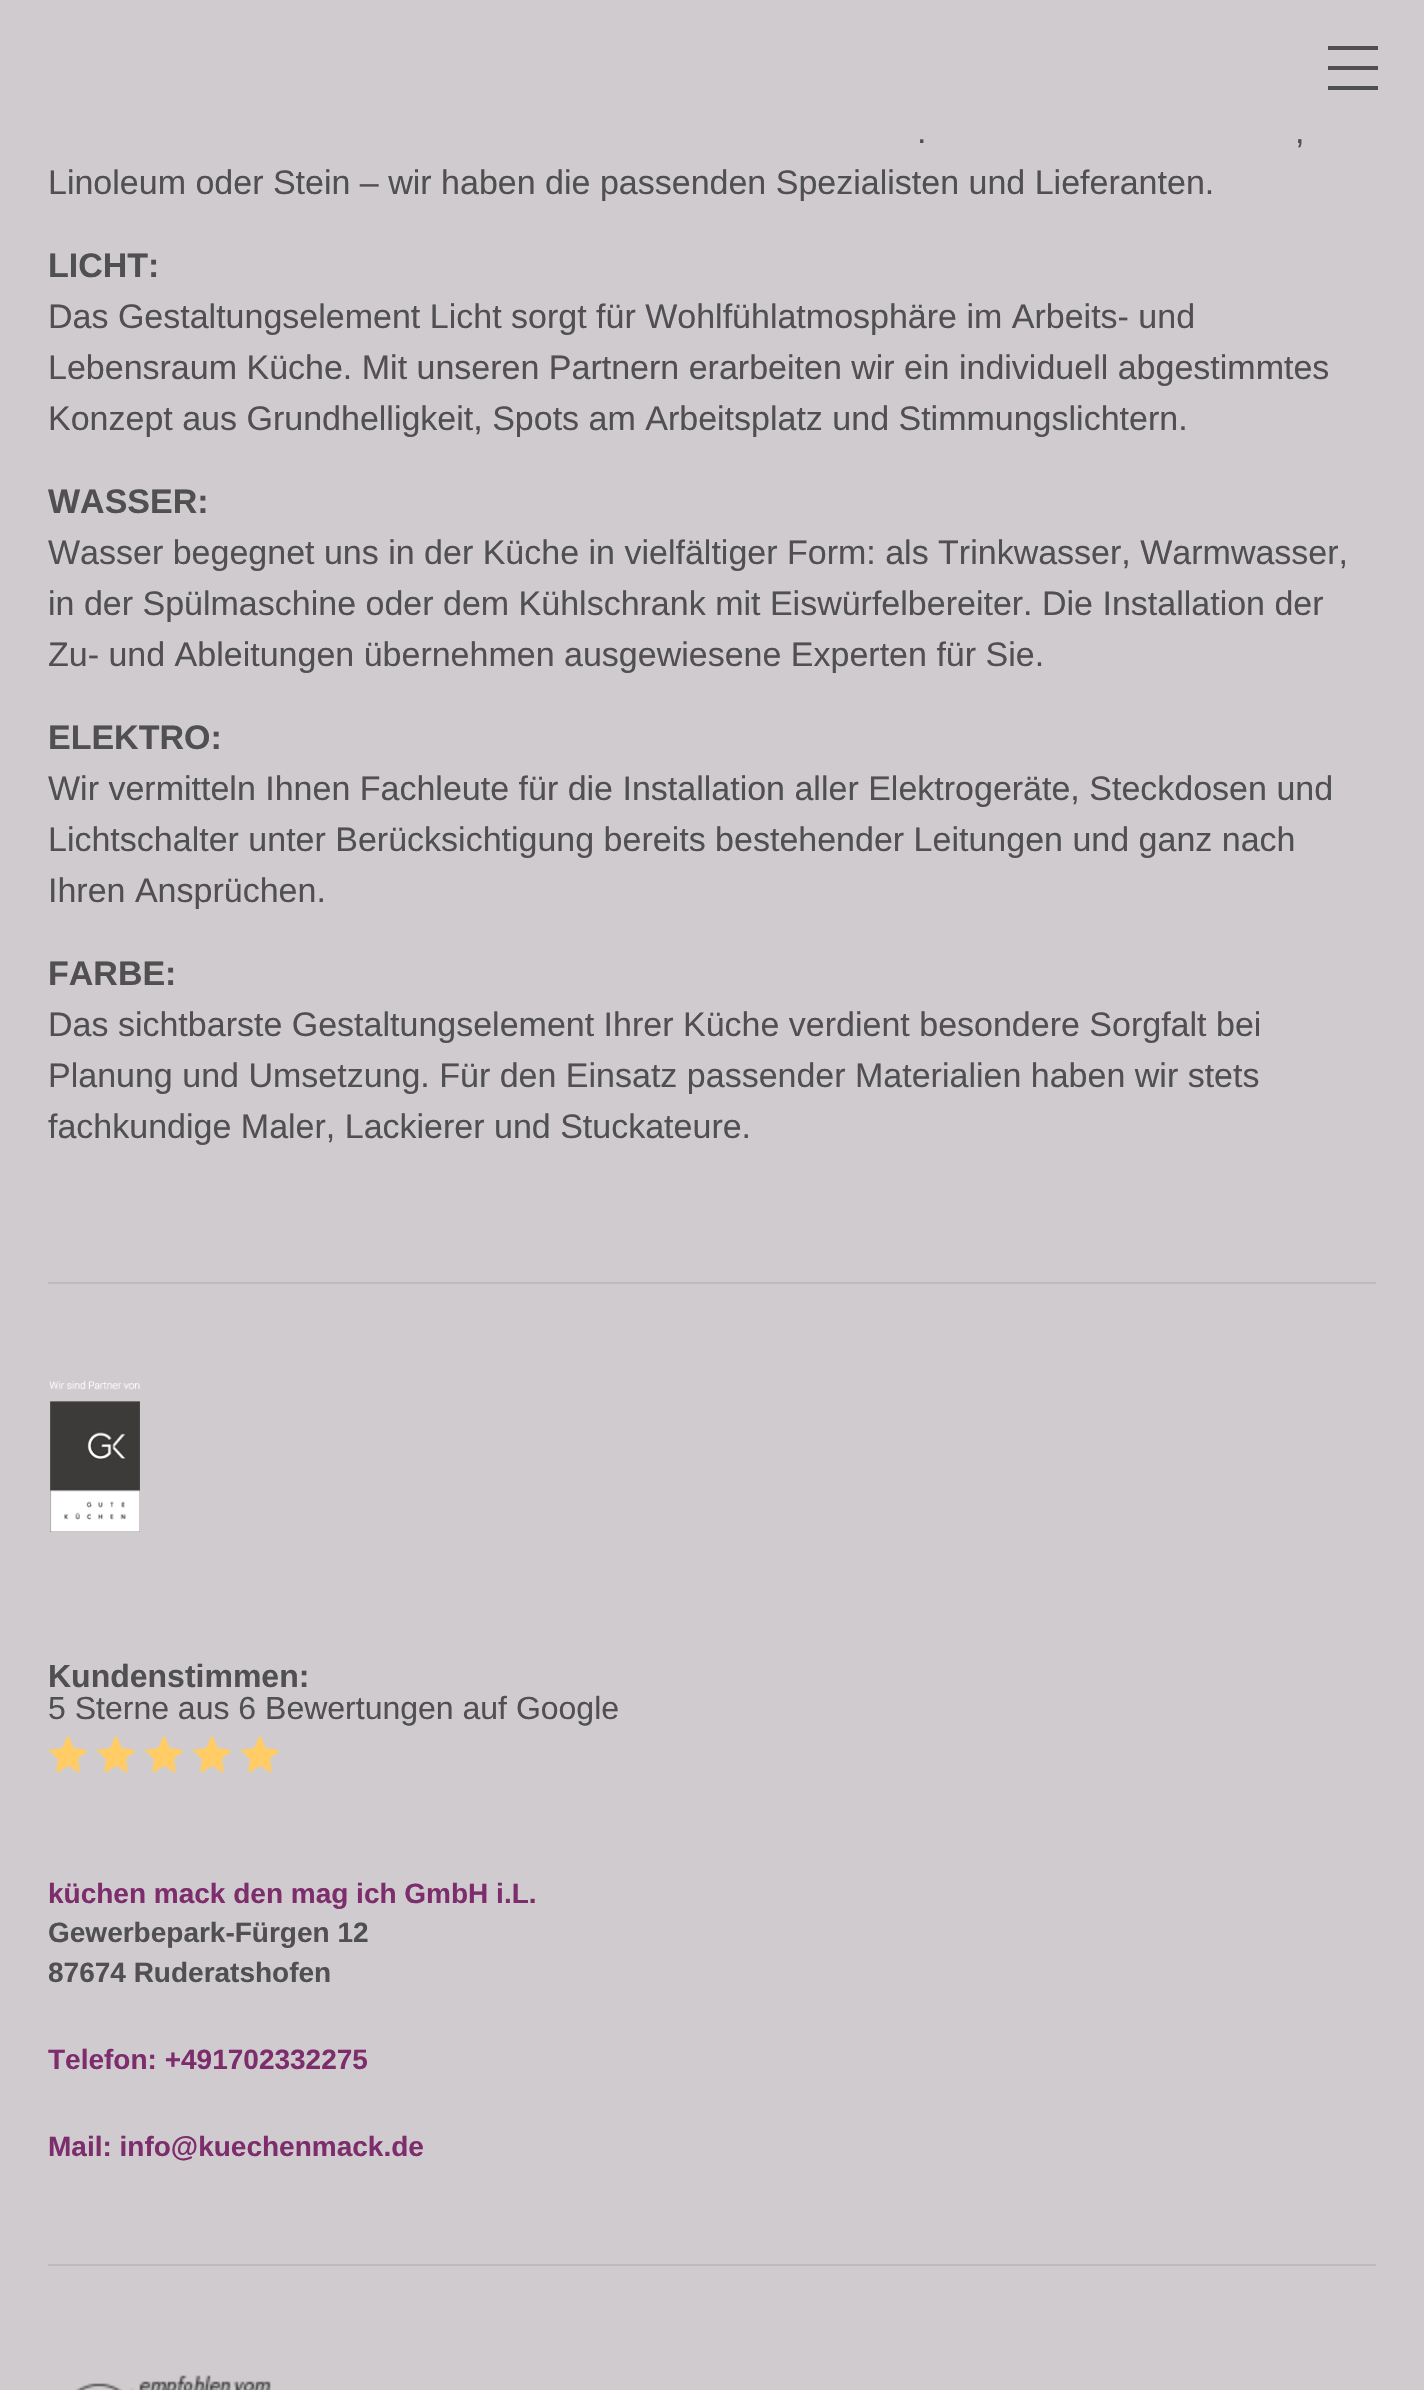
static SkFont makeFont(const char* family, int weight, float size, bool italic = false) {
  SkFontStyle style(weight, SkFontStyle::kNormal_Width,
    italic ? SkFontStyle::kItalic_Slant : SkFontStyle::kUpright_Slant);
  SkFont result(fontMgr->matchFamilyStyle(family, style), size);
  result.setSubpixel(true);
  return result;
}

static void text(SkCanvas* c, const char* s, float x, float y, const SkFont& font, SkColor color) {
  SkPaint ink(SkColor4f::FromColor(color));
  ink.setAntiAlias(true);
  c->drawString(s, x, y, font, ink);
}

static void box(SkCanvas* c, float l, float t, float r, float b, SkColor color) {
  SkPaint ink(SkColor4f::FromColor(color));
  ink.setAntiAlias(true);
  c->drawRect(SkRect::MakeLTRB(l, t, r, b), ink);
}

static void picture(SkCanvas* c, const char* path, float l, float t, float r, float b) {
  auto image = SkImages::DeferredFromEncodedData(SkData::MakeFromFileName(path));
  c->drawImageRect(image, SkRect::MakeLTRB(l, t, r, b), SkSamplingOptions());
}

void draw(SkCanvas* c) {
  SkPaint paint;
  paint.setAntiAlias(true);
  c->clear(0xffcfcbcf);
  box(c, 1328, 66, 1378, 70, 0xff505050);
  box(c, 1328, 46, 1378, 50, 0xff505050);
  box(c, 1328, 86, 1378, 90, 0xff505050);
  SkFont face1 = makeFont("Liberation Sans", 400, 34);
  text(c, ".", 917, 143, face1, 0xff505050);
  text(c, ",", 1295, 143, face1, 0xff505050);
  text(c, "Linoleum oder Stein – wir haben die passenden Spezialisten und Lieferanten.", 48, 194, face1, 0xff505050);
  SkFont face2 = makeFont("Liberation Sans", 700, 34);
  text(c, "LICHT:", 48, 277, face2, 0xff505050);
  text(c, "Das Gestaltungselement Licht sorgt für Wohlfühlatmosphäre im Arbeits- und", 48, 328, face1, 0xff505050);
  text(c, "Lebensraum Küche. Mit unseren Partnern erarbeiten wir ein individuell abgestimmtes", 48, 379, face1, 0xff505050);
  text(c, "Konzept aus Grundhelligkeit, Spots am Arbeitsplatz und Stimmungslichtern.", 48, 430, face1, 0xff505050);
  text(c, "WASSER:", 48, 513, face2, 0xff505050);
  text(c, "Wasser begegnet uns in der Küche in vielfältiger Form: als Trinkwasser, Warmwasser,", 48, 564, face1, 0xff505050);
  text(c, "in der Spülmaschine oder dem Kühlschrank mit Eiswürfelbereiter. Die Installation der", 48, 615, face1, 0xff505050);
  text(c, "Zu- und Ableitungen übernehmen ausgewiesene Experten für Sie.", 48, 666, face1, 0xff505050);
  text(c, "ELEKTRO:", 48, 749, face2, 0xff505050);
  text(c, "Wir vermitteln Ihnen Fachleute für die Installation aller Elektrogeräte, Steckdosen und", 48, 800, face1, 0xff505050);
  text(c, "Lichtschalter unter Berücksichtigung bereits bestehender Leitungen und ganz nach", 48, 851, face1, 0xff505050);
  text(c, "Ihren Ansprüchen.", 48, 902, face1, 0xff505050);
  text(c, "FARBE:", 48, 985, face2, 0xff505050);
  text(c, "Das sichtbarste Gestaltungselement Ihrer Küche verdient besondere Sorgfalt bei", 48, 1036, face1, 0xff505050);
  text(c, "Planung und Umsetzung. Für den Einsatz passender Materialien haben wir stets", 48, 1087, face1, 0xff505050);
  text(c, "fachkundige Maler, Lackierer und Stuckateure.", 48, 1138, face1, 0xff505050);
  box(c, 48, 1282, 1376, 1284, 0xffbebabe);
  box(c, 48, 2264, 1376, 2266, 0xffbebabe);
  picture(c, "img_01.png", 49, 1381, 140, 1532);
  SkFont face3 = makeFont("Liberation Sans", 700, 32);
  text(c, "Kundenstimmen:", 48, 1687, face3, 0xff505050);
  SkFont face4 = makeFont("Liberation Sans", 400, 32);
  text(c, "5 Sterne aus 6 Bewertungen auf Google", 48, 1719, face4, 0xff505050);
  paint.setColor(0xffffcc66);
  c->drawPath(SkPathBuilder().moveTo(68, 1735).lineTo(74, 1748).lineTo(88, 1750).lineTo(78, 1759).lineTo(80, 1773).lineTo(68, 1766).lineTo(56, 1773).lineTo(58, 1759).lineTo(48, 1750).lineTo(62, 1748).close().detach(), paint);
  c->drawPath(SkPathBuilder().moveTo(116, 1735).lineTo(122, 1748).lineTo(136, 1750).lineTo(126, 1759).lineTo(128, 1773).lineTo(116, 1766).lineTo(104, 1773).lineTo(106, 1759).lineTo(96, 1750).lineTo(110, 1748).close().detach(), paint);
  c->drawPath(SkPathBuilder().moveTo(164, 1735).lineTo(170, 1748).lineTo(184, 1750).lineTo(174, 1759).lineTo(176, 1773).lineTo(164, 1766).lineTo(152, 1773).lineTo(154, 1759).lineTo(144, 1750).lineTo(158, 1748).close().detach(), paint);
  c->drawPath(SkPathBuilder().moveTo(212, 1735).lineTo(218, 1748).lineTo(232, 1750).lineTo(222, 1759).lineTo(224, 1773).lineTo(212, 1766).lineTo(200, 1773).lineTo(202, 1759).lineTo(192, 1750).lineTo(206, 1748).close().detach(), paint);
  c->drawPath(SkPathBuilder().moveTo(260, 1735).lineTo(266, 1748).lineTo(280, 1750).lineTo(270, 1759).lineTo(272, 1773).lineTo(260, 1766).lineTo(248, 1773).lineTo(250, 1759).lineTo(240, 1750).lineTo(254, 1748).close().detach(), paint);
  SkFont face5 = makeFont("Liberation Sans", 700, 28);
  text(c, "küchen mack den mag ich GmbH i.L.", 48, 1903, face5, 0xff7d2d6c);
  text(c, "Gewerbepark-Fürgen 12", 48, 1942, face5, 0xff505050);
  text(c, "87674 Ruderatshofen", 48, 1982, face5, 0xff505050);
  text(c, "Telefon: +491702332275", 48, 2069, face5, 0xff7d2d6c);
  text(c, "Mail: info@kuechenmack.de", 48, 2156, face5, 0xff7d2d6c);
  picture(c, "img_02.png", 75, 2375, 271, 2390);
}
